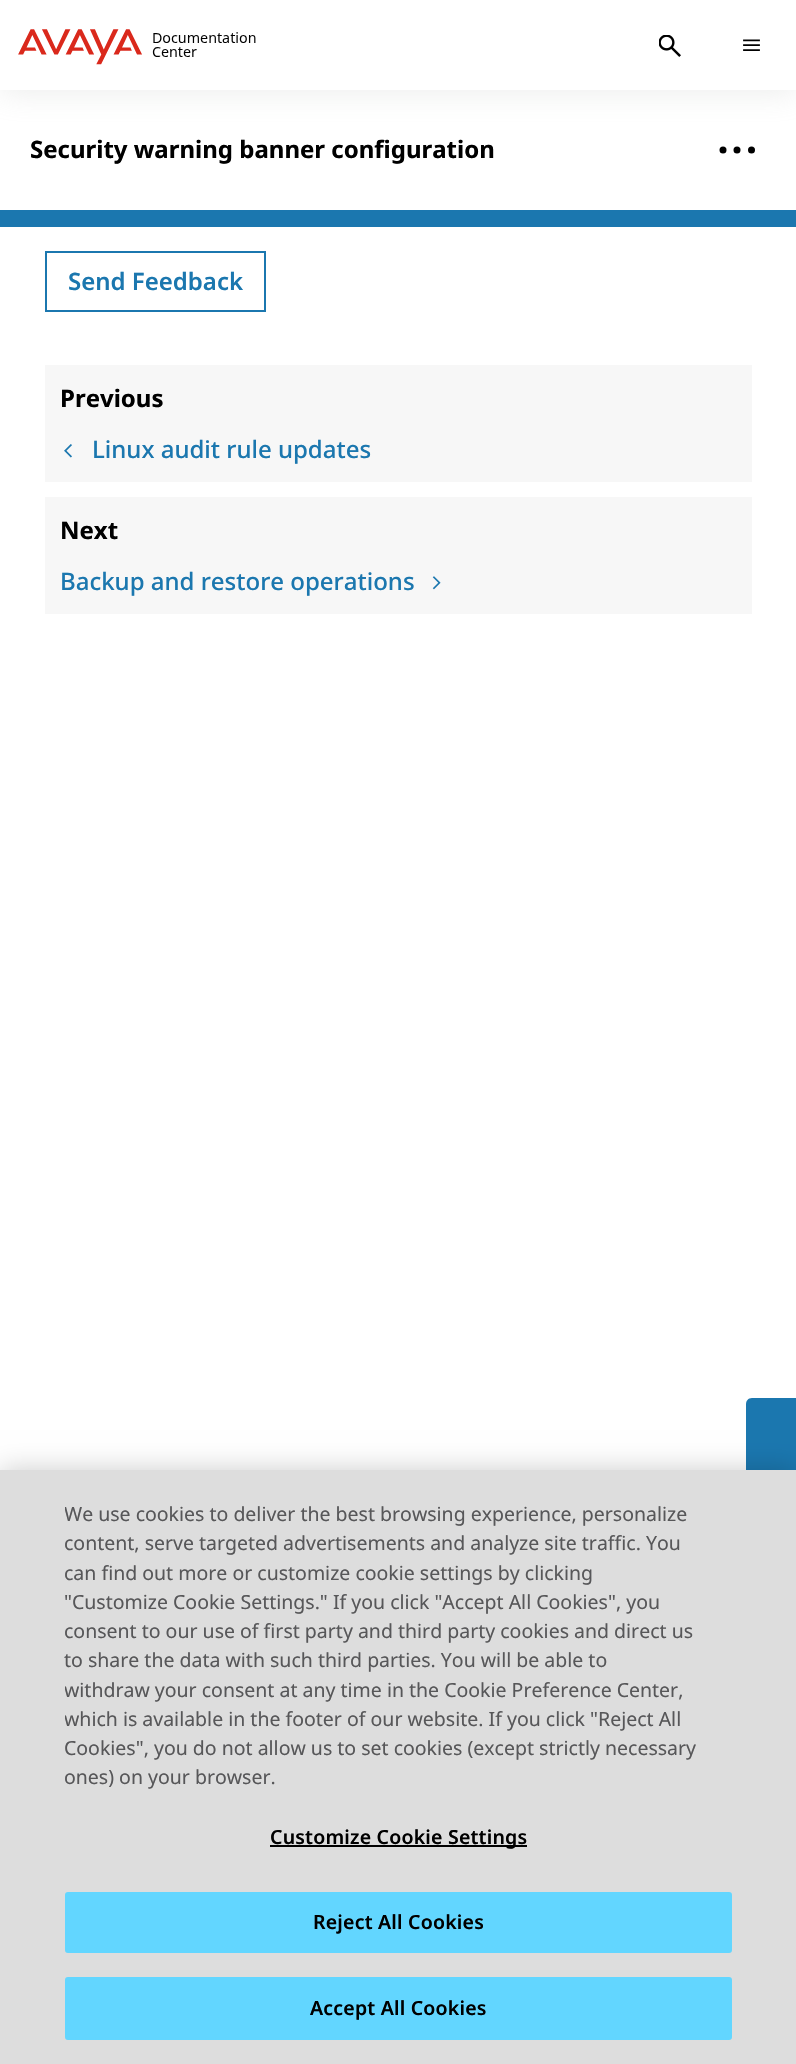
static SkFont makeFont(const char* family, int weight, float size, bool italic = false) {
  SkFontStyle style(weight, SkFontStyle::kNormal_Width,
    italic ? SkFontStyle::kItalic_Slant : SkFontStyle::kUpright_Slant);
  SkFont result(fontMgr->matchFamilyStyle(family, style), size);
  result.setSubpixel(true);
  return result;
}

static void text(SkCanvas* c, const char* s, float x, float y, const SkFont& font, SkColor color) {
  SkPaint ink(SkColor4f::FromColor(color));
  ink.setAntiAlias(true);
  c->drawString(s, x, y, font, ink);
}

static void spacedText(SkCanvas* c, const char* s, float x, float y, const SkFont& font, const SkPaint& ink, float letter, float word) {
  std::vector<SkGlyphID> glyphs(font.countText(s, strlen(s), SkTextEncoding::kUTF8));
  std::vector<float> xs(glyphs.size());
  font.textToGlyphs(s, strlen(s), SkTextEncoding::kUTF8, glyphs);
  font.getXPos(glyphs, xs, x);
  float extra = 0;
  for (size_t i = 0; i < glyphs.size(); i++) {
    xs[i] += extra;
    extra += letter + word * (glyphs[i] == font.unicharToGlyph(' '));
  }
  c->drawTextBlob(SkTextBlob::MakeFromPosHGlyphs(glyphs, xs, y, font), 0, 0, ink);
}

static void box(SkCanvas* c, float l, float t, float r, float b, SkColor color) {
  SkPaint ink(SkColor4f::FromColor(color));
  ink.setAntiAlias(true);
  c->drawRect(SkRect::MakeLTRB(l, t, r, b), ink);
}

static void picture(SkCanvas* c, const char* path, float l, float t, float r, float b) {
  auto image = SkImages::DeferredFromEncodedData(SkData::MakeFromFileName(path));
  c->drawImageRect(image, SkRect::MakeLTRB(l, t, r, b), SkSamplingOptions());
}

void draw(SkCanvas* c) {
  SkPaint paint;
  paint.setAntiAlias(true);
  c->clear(0xffffffff);
  paint.setColor(0x40b5b7b3);
  paint.setMaskFilter(SkMaskFilter::MakeBlur(kNormal_SkBlurStyle, 15));
  c->drawRect(SkRect::MakeLTRB(0, 3, 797, 93), paint);
  paint.setMaskFilter(nullptr);
  box(c, 0, 0, 796, 90, 0xffffffff);
  picture(c, "img_01.png", 18, 29, 256, 65);
  picture(c, "img_02.png", 659, 35, 681, 57);
  picture(c, "img_03.png", 743, 39, 760, 51);
  SkFont face1 = makeFont("Noto Sans", 700, 24);
  text(c, "Security warning banner configuration", 30, 158, face1, 0xff000000);
  paint.setColor(0xff000000);
  c->drawCircle(723, 150, 3.5f, paint);
  c->drawCircle(737, 150, 3.5f, paint);
  c->drawCircle(751.5f, 150, 3.5f, paint);
  box(c, 0, 210, 796, 227, 0xff1b77af);
  paint.setStyle(SkPaint::kStroke_Style);
  paint.setStrokeWidth(2);
  paint.setColor(0xff1b77af);
  c->drawRect(SkRect::MakeLTRB(46, 252, 265, 311), paint);
  SkFont face2 = makeFont("Noto Sans", 600, 24);
  text(c, "Send Feedback", 68, 290, face2, 0xff1b77af);
  box(c, 45, 365, 752, 482, 0xfff7f7f7);
  text(c, "Previous", 60, 407, face1, 0xff000000);
  picture(c, "img_04.png", 64, 444, 72, 458);
  SkFont face3 = makeFont("Noto Sans", 500, 24);
  text(c, "Linux audit rule updates", 92, 458, face3, 0xff1b77af);
  box(c, 45, 497, 752, 614, 0xfff7f7f7);
  text(c, "Next", 60, 539, face1, 0xff000000);
  text(c, "Backup and restore operations", 60, 590, face3, 0xff1b77af);
  picture(c, "img_05.png", 432, 576, 441, 590);
  paint.setStyle(SkPaint::kFill_Style);
  c->drawPath(SkPathBuilder().moveTo(746, 1536).lineTo(746, 1404).cubicTo(746, 1401, 748, 1398, 752, 1398).lineTo(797, 1398).lineTo(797, 1542).lineTo(752, 1542).cubicTo(748, 1542, 746, 1540, 746, 1536).close().detach(), paint);
  paint.setColor(0x33000000);
  paint.setMaskFilter(SkMaskFilter::MakeBlur(kNormal_SkBlurStyle, 13.5f));
  c->drawRect(SkRect::MakeLTRB(0, 1470, 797, 2064), paint);
  paint.setMaskFilter(nullptr);
  box(c, 0, 1470, 796, 2064, 0xffdddddd);
  c->save();
  c->clipRect(SkRect::MakeLTRB(65, 1500, 698, 1793));
  SkFont face4 = makeFont("Noto Sans", 400, 19.5f);
  text(c, "We use cookies to deliver the best browsing experience, personalize", 64, 1521, face4, 0xff575759);
  c->restore();
  text(c, "content, serve targeted advertisements and analyze site traffic. You", 64, 1550, face4, 0xff575759);
  text(c, "can find out more or customize cookie settings by clicking", 64, 1580, face4, 0xff575759);
  text(c, "\"Customize Cookie Settings.\" If you click \"Accept All Cookies\", you", 64, 1609, face4, 0xff575759);
  text(c, "consent to our use of first party and third party cookies and direct us", 64, 1638, face4, 0xff575759);
  text(c, "to share the data with such third parties. You will be able to", 64, 1667, face4, 0xff575759);
  c->save();
  c->clipRect(SkRect::MakeLTRB(65, 1500, 698, 1793));
  text(c, "withdraw your consent at any time in the Cookie Preference Center,", 64, 1697, face4, 0xff575759);
  text(c, "which is available in the footer of our website. If you click \"Reject All", 64, 1726, face4, 0xff575759);
  c->restore();
  text(c, "Cookies\", you do not allow us to set cookies (except strictly necessary", 64, 1755, face4, 0xff575759);
  text(c, "ones) on your browser.", 64, 1784, face4, 0xff575759);
  box(c, 270, 1845, 527, 1847, 0xff000000);
  SkFont face5 = makeFont("Noto Sans", 600, 19.5f);
  paint.setColor(0xff000000);
  spacedText(c, "Customize Cookie Settings", 270, 1844, face5, paint, 0.2f, 0);
  paint.setColor(0xff62d6ff);
  c->drawRoundRect(SkRect::MakeLTRB(66, 1893, 731, 1952), 2, 2, paint);
  paint.setStyle(SkPaint::kStroke_Style);
  c->drawRoundRect(SkRect::MakeLTRB(66, 1893, 731, 1952), 2, 2, paint);
  paint.setStyle(SkPaint::kFill_Style);
  paint.setColor(0xff000000);
  spacedText(c, "Reject All Cookies", 313, 1929, face5, paint, 0.2f, 0);
  paint.setColor(0xff62d6ff);
  c->drawRoundRect(SkRect::MakeLTRB(66, 1978, 731, 2039), 2, 2, paint);
  paint.setStyle(SkPaint::kStroke_Style);
  c->drawRoundRect(SkRect::MakeLTRB(66, 1978, 731, 2039), 2, 2, paint);
  paint.setStyle(SkPaint::kFill_Style);
  paint.setColor(0xff000000);
  spacedText(c, "Accept All Cookies", 310, 2015, face5, paint, 0.2f, 0);
}
